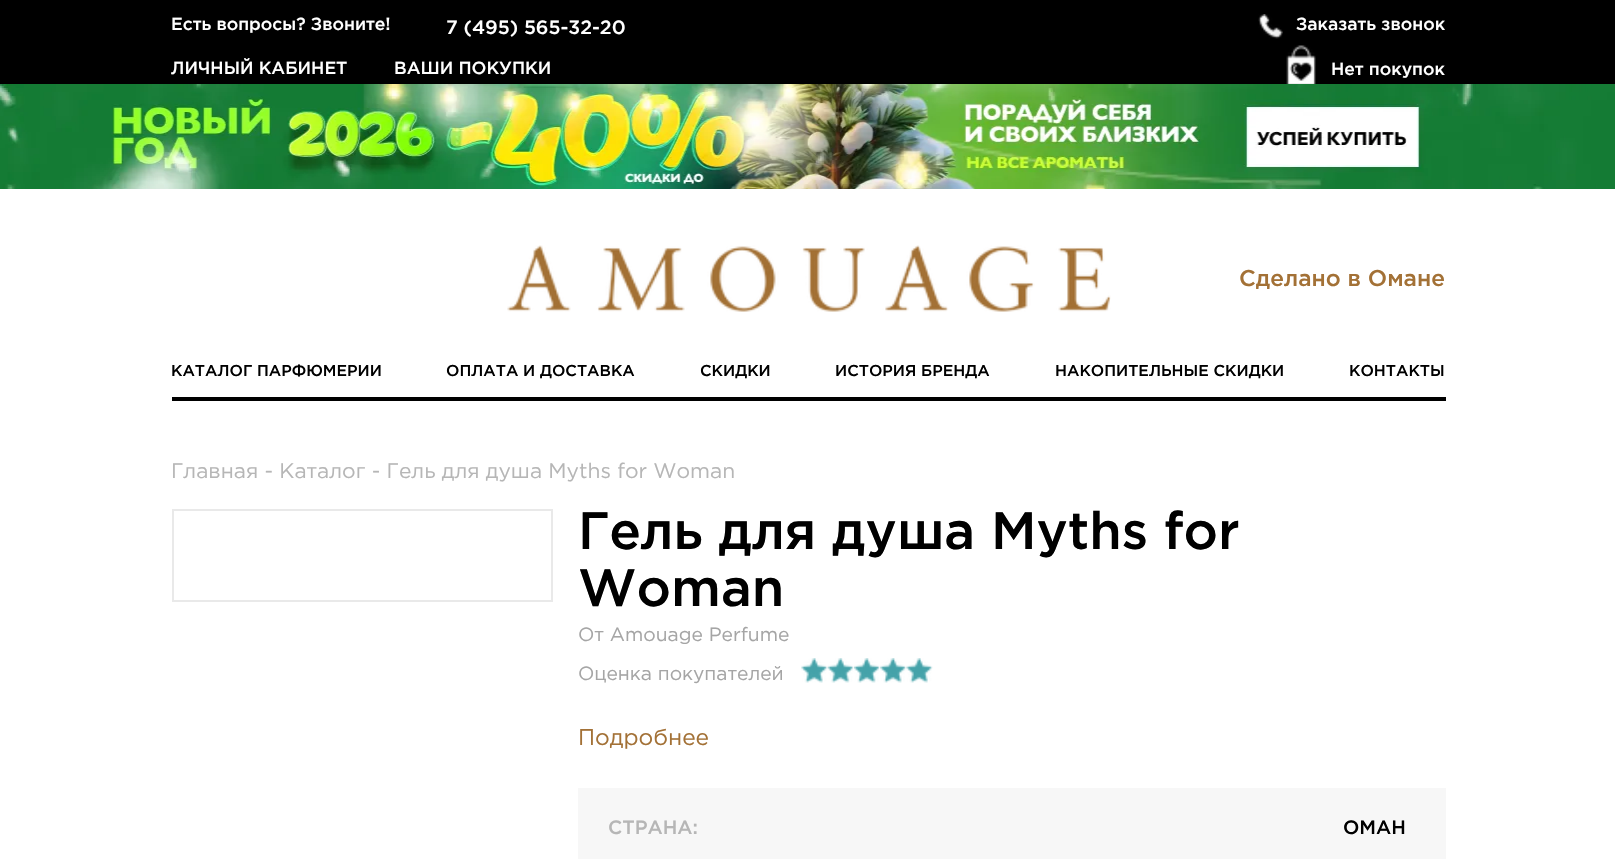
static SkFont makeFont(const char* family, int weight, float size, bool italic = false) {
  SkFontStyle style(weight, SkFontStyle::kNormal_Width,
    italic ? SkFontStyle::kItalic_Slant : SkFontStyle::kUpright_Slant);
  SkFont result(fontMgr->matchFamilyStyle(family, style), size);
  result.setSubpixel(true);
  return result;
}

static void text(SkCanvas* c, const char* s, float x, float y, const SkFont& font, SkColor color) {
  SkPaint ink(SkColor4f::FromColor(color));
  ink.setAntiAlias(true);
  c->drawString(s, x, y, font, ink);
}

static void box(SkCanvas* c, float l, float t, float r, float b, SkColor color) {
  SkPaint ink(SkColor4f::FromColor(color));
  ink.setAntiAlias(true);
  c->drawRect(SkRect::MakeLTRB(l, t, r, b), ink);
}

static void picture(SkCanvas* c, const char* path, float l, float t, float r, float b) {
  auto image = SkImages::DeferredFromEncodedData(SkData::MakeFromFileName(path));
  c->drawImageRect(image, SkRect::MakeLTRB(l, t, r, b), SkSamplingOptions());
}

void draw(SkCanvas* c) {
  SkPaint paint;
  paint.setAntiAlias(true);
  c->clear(0xffffffff);
  box(c, 0, 0, 1615, 84, 0xff000000);
  SkFont face1 = makeFont("Gotham", 500, 17.5f);
  text(c, "Есть вопросы? Звоните!", 171, 30, face1, 0xffffffff);
  SkFont face2 = makeFont("Gotham", 500, 19.25f);
  text(c, "7 (495) 565-32-20", 446, 34, face2, 0xffffffff);
  picture(c, "img_01.png", 1258, 14, 1283, 39);
  text(c, "Заказать звонок", 1296, 30, face1, 0xffffffff);
  text(c, "ЛИЧНЫЙ КАБИНЕТ", 171, 74, face1, 0xffffffff);
  text(c, "ВАШИ ПОКУПКИ", 394, 74, face1, 0xffffffff);
  picture(c, "img_02.png", 1286, 45, 1316, 84);
  text(c, "Нет покупок", 1331, 75, face1, 0xffffffff);
  picture(c, "img_03.png", 0, 84, 1615, 189);
  picture(c, "img_04.png", 507, 245, 1111, 312);
  SkFont face3 = makeFont("Gotham", 500, 22.75f);
  text(c, "Сделано в Омане", 1239, 286, face3, 0xffa37136);
  box(c, 172, 397, 1446, 401, 0xff000000);
  SkFont face4 = makeFont("Gotham", 500, 15.75f);
  text(c, "КАТАЛОГ ПАРФЮМЕРИИ", 171, 376, face4, 0xff000000);
  text(c, "ОПЛАТА И ДОСТАВКА", 446, 376, face4, 0xff000000);
  text(c, "СКИДКИ", 700, 376, face4, 0xff000000);
  text(c, "ИСТОРИЯ БРЕНДА", 835, 376, face4, 0xff000000);
  text(c, "НАКОПИТЕЛЬНЫЕ СКИДКИ", 1055, 376, face4, 0xff000000);
  text(c, "КОНТАКТЫ", 1349, 376, face4, 0xff000000);
  SkFont face5 = makeFont("Gotham", 400, 21);
  text(c, "Главная - Каталог - Гель для душа Myths for Woman", 171, 478, face5, 0xffb6b6b6);
  paint.setStyle(SkPaint::kStroke_Style);
  paint.setStrokeWidth(2);
  paint.setColor(0xffe9e9e9);
  c->drawRect(SkRect::MakeLTRB(173, 510, 552, 601), paint);
  SkFont face6 = makeFont("Gotham", 500, 52.5f);
  text(c, "Гель для душа Myths for", 578, 549, face6, 0xff000000);
  text(c, "Woman", 578, 606, face6, 0xff000000);
  SkFont face7 = makeFont("Gotham", 400, 19.25f);
  text(c, "От Amouage Perfume", 578, 641, face7, 0xffa5a5a5);
  text(c, "Оценка покупателей", 578, 680, face7, 0xffa5a5a5);
  picture(c, "img_05.png", 801, 658, 828, 683);
  picture(c, "img_06.png", 827, 658, 854, 683);
  picture(c, "img_07.png", 854, 658, 880, 683);
  picture(c, "img_08.png", 880, 658, 907, 683);
  picture(c, "img_09.png", 906, 658, 933, 683);
  SkFont face8 = makeFont("Gotham", 400, 22.75f);
  text(c, "Подробнее", 578, 745, face8, 0xffa37136);
  box(c, 578, 788, 1446, 859, 0xfff7f7f7);
  text(c, "СТРАНА:", 608, 834, face2, 0xffb6b6b6);
  text(c, "ОМАН", 1343, 834, face2, 0xff000000);
}
